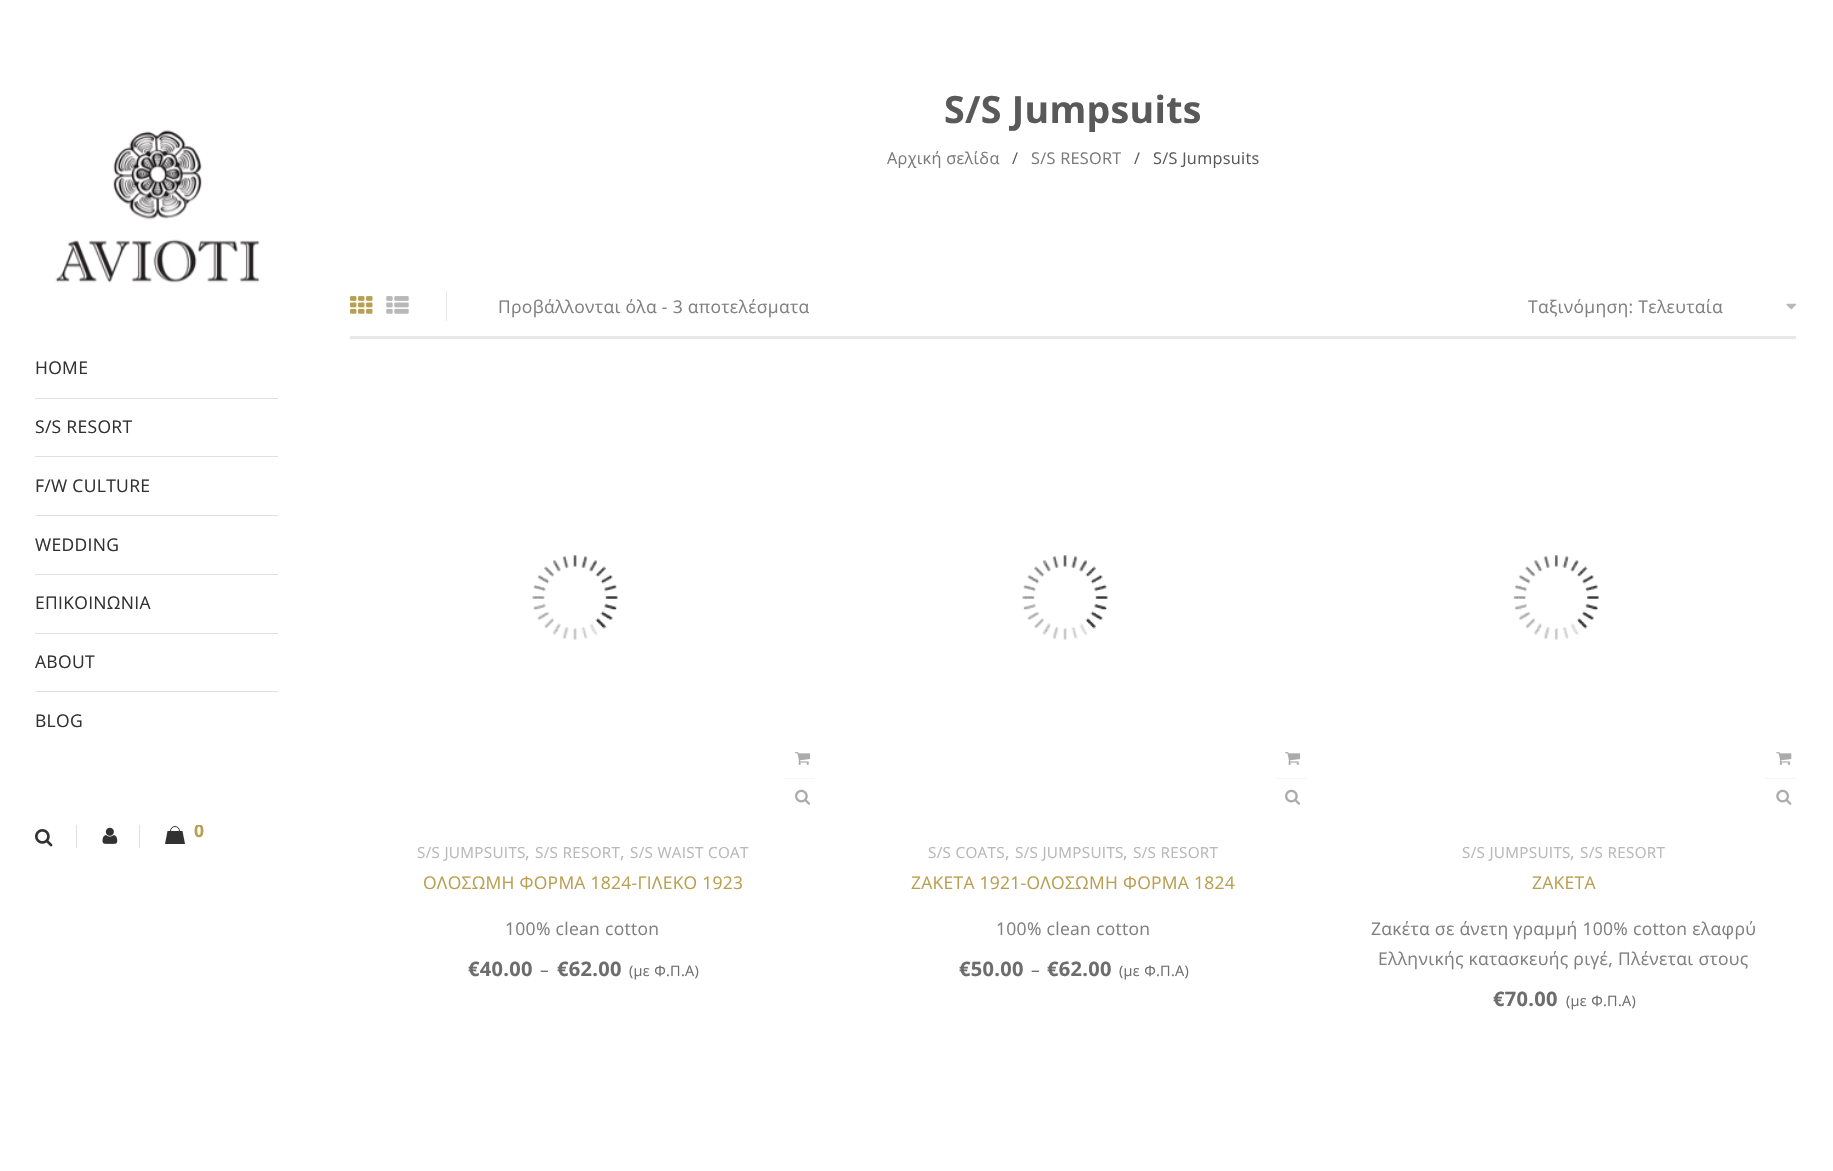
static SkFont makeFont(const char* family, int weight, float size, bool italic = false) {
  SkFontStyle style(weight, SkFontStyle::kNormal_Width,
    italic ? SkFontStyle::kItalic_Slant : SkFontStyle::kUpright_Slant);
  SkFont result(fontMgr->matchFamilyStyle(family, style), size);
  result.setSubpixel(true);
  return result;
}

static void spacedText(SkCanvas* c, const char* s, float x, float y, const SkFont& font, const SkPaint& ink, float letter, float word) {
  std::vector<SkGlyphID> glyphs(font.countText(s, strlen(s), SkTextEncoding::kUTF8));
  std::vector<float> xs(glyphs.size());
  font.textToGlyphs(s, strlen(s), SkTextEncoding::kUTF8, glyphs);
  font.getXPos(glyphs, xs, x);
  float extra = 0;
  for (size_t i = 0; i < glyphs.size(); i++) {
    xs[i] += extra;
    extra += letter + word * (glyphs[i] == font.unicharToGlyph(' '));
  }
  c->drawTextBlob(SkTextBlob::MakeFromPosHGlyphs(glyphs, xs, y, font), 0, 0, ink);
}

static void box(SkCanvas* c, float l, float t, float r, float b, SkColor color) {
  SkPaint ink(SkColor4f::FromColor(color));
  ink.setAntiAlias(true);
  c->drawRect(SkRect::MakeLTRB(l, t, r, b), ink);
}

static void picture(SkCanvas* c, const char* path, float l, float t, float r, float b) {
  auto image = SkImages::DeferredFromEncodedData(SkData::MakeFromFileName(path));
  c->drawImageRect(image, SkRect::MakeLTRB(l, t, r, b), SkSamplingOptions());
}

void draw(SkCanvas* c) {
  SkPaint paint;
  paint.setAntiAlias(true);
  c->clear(0xffffffff);
  picture(c, "img_01.png", 55, 130, 260, 283);
  box(c, 35, 398, 278, 399, 0xffe0e0e0);
  SkFont face1 = makeFont("Open Sans", 400, 17.5f);
  paint.setColor(0xff323232);
  spacedText(c, "HOME", 35, 374, face1, paint, 0.3f, 0);
  box(c, 35, 456, 278, 457, 0xffe0e0e0);
  spacedText(c, "S/S RESORT", 35, 433, face1, paint, 0.3f, 0);
  box(c, 35, 515, 278, 516, 0xffe0e0e0);
  spacedText(c, "F/W CULTURE", 35, 492, face1, paint, 0.3f, 0);
  box(c, 35, 574, 278, 575, 0xffe0e0e0);
  spacedText(c, "WEDDING", 35, 551, face1, paint, 0.3f, 0);
  box(c, 35, 633, 278, 634, 0xffe0e0e0);
  spacedText(c, "ΕΠΙΚΟΙΝΩΝΙΑ", 35, 609, face1, paint, 0.3f, 0);
  box(c, 35, 691, 278, 692, 0xffe0e0e0);
  spacedText(c, "ABOUT", 35, 668, face1, paint, 0.3f, 0);
  spacedText(c, "BLOG", 35, 727, face1, paint, 0.3f, 0);
  picture(c, "img_02.png", 35, 829, 53, 847);
  box(c, 76, 825, 77, 848, 0xffe0e0e0);
  picture(c, "img_03.png", 102, 827, 118, 844);
  box(c, 139, 825, 140, 848, 0xffe0e0e0);
  c->drawPath(SkPathBuilder().moveTo(185, 844).lineTo(165, 844).lineTo(167.5f, 831).lineTo(182.5f, 831).close().detach(), paint);
  paint.setStyle(SkPaint::kStroke_Style);
  paint.setStrokeWidth(1);
  c->drawCircle(175, 831, 4.5f, paint);
  c->save();
  c->clipRect(SkRect::MakeLTRB(0, 825, 313, 848));
  SkFont face2 = makeFont("Open Sans", 700, 17.5f);
  paint.setStyle(SkPaint::kFill_Style);
  paint.setColor(0xffb99f51);
  spacedText(c, "0", 194, 837, face2, paint, 0.3f, 0);
  c->restore();
  SkFont face3 = makeFont("Open Sans", 700, 37.5f);
  paint.setColor(0xff595959);
  spacedText(c, "S/S Jumpsuits", 944, 123, face3, paint, 0.3f, 0);
  SkFont face4 = makeFont("Open Sans", 400, 16.25f);
  paint.setColor(0xff7a7a7a);
  spacedText(c, "Αρχική σελίδα", 887, 164, face4, paint, 0.3f, 0);
  paint.setColor(0xff595959);
  spacedText(c, "/", 1012, 164, face4, paint, 0.3f, 0);
  paint.setColor(0xff7a7a7a);
  spacedText(c, "S/S RESORT", 1031, 164, face4, paint, 0.3f, 0);
  paint.setColor(0xff595959);
  spacedText(c, "/", 1134, 164, face4, paint, 0.3f, 0);
  spacedText(c, "S/S Jumpsuits", 1153, 164, face4, paint, 0.3f, 0);
  box(c, 350, 336, 1796, 339, 0xffe8e8e8);
  box(c, 446, 291, 447, 321, 0xffe8e8e8);
  picture(c, "img_04.png", 350, 296, 373, 314);
  picture(c, "img_05.png", 386, 296, 409, 314);
  paint.setColor(0xff808080);
  spacedText(c, "Προβάλλονται όλα - 3 αποτελέσματα", 498, 313, face1, paint, 0.3f, 0);
  spacedText(c, "Ταξινόμηση: Τελευταία", 1528, 313, face1, paint, 0.3f, 0);
  picture(c, "img_06.png", 1786, 303, 1797, 310);
  picture(c, "img_07.png", 532, 555, 618, 640);
  box(c, 784, 778, 815, 779, 0xfff5f5f5);
  picture(c, "img_08.png", 795, 752, 811, 765);
  picture(c, "img_09.png", 795, 789, 810, 805);
  SkFont face5 = makeFont("Open Sans", 400, 15.25f);
  paint.setColor(0xffb8b8b8);
  spacedText(c, "S/S JUMPSUITS", 417, 858, face5, paint, 0.3f, 0);
  spacedText(c, ",", 525, 858, face1, paint, 0.3f, 0);
  spacedText(c, "S/S RESORT", 535, 858, face5, paint, 0.3f, 0);
  spacedText(c, ",", 620, 858, face1, paint, 0.3f, 0);
  spacedText(c, "S/S WAIST COAT", 630, 858, face5, paint, 0.3f, 0);
  paint.setColor(0xffb99f51);
  spacedText(c, "ΟΛΟΣΩΜΗ ΦΟΡΜΑ 1824-ΓΙΛΕΚΟ 1923", 423, 889, face1, paint, 0.25f, 0);
  paint.setColor(0xff808080);
  spacedText(c, "100% clean cotton", 505, 935, face1, paint, 0.3f, 0);
  SkFont face6 = makeFont("Open Sans", 700, 20);
  paint.setColor(0xff6d6d6d);
  spacedText(c, "€40.00", 468, 976, face6, paint, 0.3f, 0);
  spacedText(c, "–", 540, 976, face1, paint, 0.3f, 0);
  spacedText(c, "€62.00", 557, 976, face6, paint, 0.3f, 0);
  SkFont face7 = makeFont("Open Sans", 400, 14.5f);
  spacedText(c, "(με Φ.Π.Α)", 629, 976, face7, paint, 0.3f, 0);
  picture(c, "img_07.png", 1022, 555, 1108, 640);
  box(c, 1275, 778, 1306, 779, 0xfff5f5f5);
  picture(c, "img_08.png", 1285, 752, 1301, 765);
  picture(c, "img_09.png", 1285, 789, 1300, 805);
  paint.setColor(0xffb8b8b8);
  spacedText(c, "S/S COATS", 928, 858, face5, paint, 0.3f, 0);
  spacedText(c, ",", 1005, 858, face1, paint, 0.3f, 0);
  spacedText(c, "S/S JUMPSUITS", 1015, 858, face5, paint, 0.3f, 0);
  spacedText(c, ",", 1123, 858, face1, paint, 0.3f, 0);
  spacedText(c, "S/S RESORT", 1133, 858, face5, paint, 0.3f, 0);
  paint.setColor(0xffb99f51);
  spacedText(c, "ΖΑΚΕΤΑ 1921-ΟΛΟΣΩΜΗ ΦΟΡΜΑ 1824", 911, 889, face1, paint, 0.25f, 0);
  paint.setColor(0xff808080);
  spacedText(c, "100% clean cotton", 996, 935, face1, paint, 0.3f, 0);
  paint.setColor(0xff6d6d6d);
  spacedText(c, "€50.00", 959, 976, face6, paint, 0.3f, 0);
  spacedText(c, "–", 1031, 976, face1, paint, 0.3f, 0);
  spacedText(c, "€62.00", 1047, 976, face6, paint, 0.3f, 0);
  spacedText(c, "(με Φ.Π.Α)", 1119, 976, face7, paint, 0.3f, 0);
  picture(c, "img_10.png", 1513, 555, 1599, 640);
  box(c, 1765, 778, 1796, 779, 0xfff5f5f5);
  picture(c, "img_11.png", 1776, 752, 1792, 765);
  picture(c, "img_12.png", 1776, 789, 1792, 805);
  paint.setColor(0xffb8b8b8);
  spacedText(c, "S/S JUMPSUITS", 1462, 858, face5, paint, 0.3f, 0);
  spacedText(c, ",", 1570, 858, face1, paint, 0.3f, 0);
  spacedText(c, "S/S RESORT", 1580, 858, face5, paint, 0.3f, 0);
  paint.setColor(0xffb99f51);
  spacedText(c, "ZAKETA", 1532, 889, face1, paint, 0.25f, 0);
  paint.setColor(0xff808080);
  spacedText(c, "Ζακέτα σε άνετη γραμμή 100% cotton ελαφρύ", 1371, 935, face1, paint, 0.3f, 0);
  spacedText(c, "Ελληνικής κατασκευής ριγέ, Πλένεται στους", 1378, 965, face1, paint, 0.3f, 0);
  paint.setColor(0xff6d6d6d);
  spacedText(c, "€70.00", 1493, 1006, face6, paint, 0.3f, 0);
  spacedText(c, "(με Φ.Π.Α)", 1566, 1006, face7, paint, 0.3f, 0);
}
